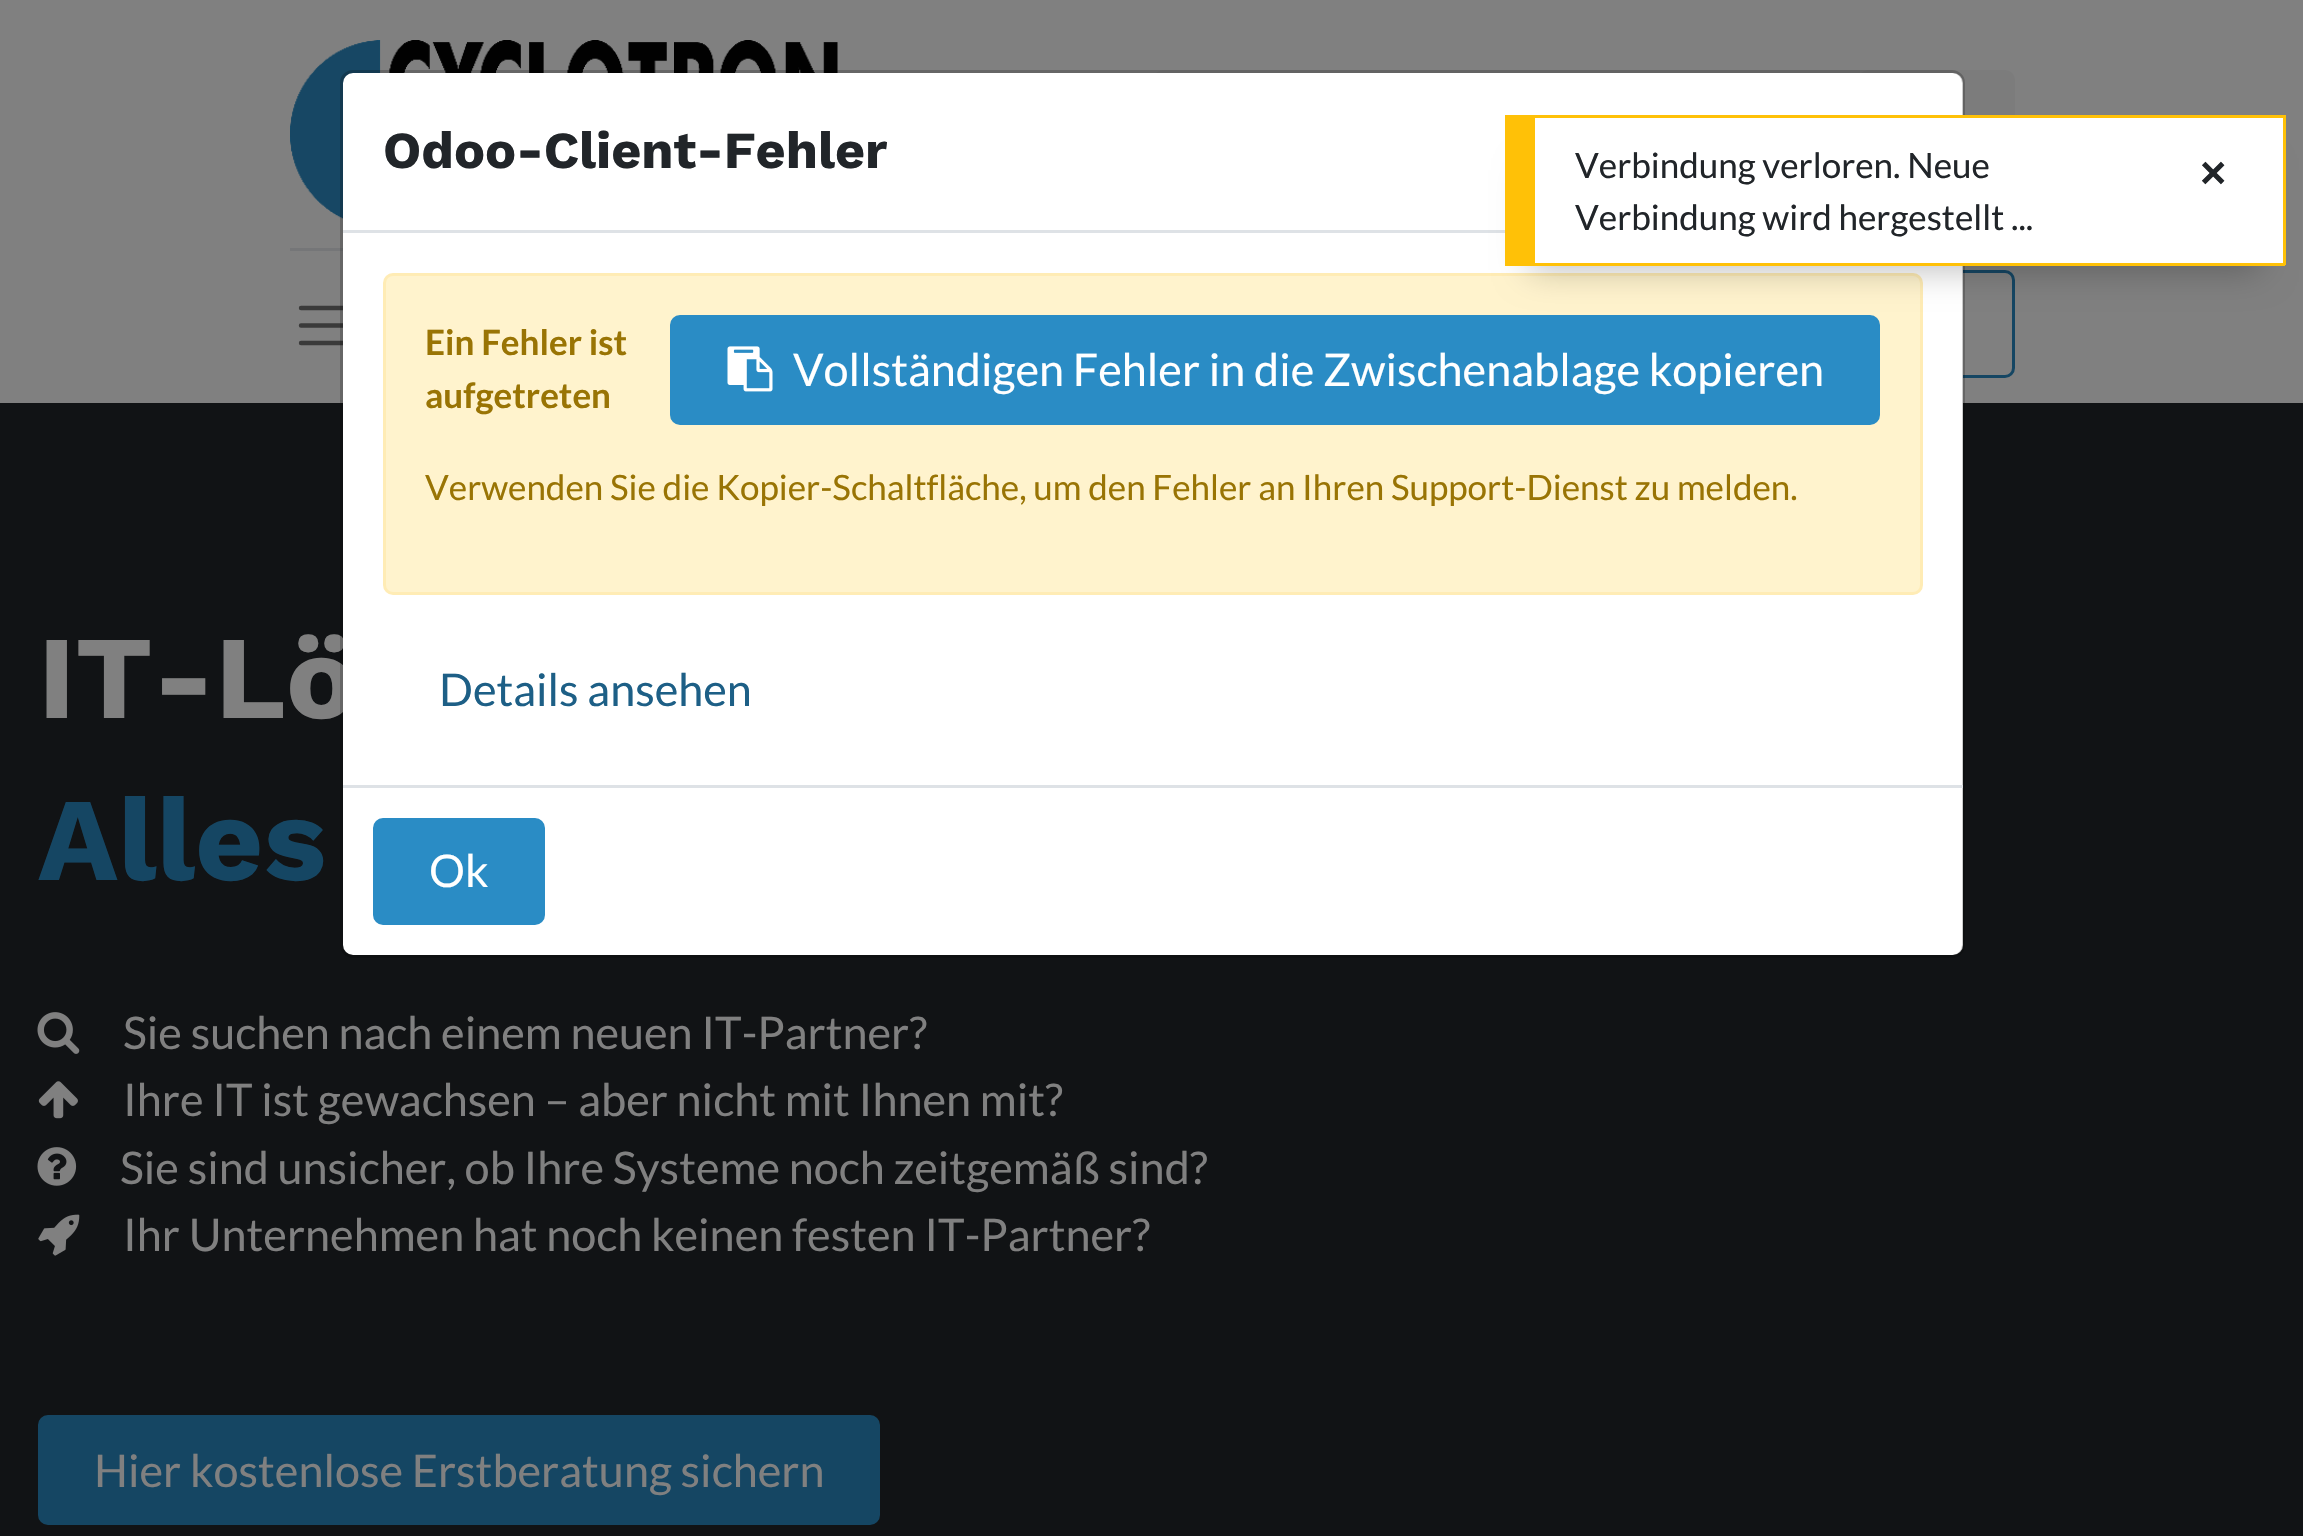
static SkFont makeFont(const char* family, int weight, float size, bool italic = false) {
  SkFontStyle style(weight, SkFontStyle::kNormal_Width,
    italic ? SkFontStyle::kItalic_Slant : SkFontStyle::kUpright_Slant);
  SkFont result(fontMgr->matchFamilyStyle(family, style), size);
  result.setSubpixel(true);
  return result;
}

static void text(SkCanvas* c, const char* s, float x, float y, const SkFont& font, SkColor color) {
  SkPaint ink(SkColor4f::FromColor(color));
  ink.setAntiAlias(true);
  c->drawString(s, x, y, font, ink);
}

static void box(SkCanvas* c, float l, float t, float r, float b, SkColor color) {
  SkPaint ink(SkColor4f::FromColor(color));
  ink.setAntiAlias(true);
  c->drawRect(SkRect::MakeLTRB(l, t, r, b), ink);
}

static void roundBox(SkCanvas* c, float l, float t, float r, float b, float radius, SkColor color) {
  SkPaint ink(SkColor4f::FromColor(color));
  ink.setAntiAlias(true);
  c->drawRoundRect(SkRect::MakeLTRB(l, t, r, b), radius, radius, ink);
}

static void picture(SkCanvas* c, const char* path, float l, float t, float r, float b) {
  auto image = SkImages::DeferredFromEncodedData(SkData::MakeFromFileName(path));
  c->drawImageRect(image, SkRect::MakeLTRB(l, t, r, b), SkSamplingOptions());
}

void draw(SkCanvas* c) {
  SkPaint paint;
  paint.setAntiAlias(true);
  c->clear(0xff111315);
  box(c, 0, 0, 2303, 403, 0xff808080);
  picture(c, "img_02.png", 290, 40, 838, 219);
  paint.setColor(0xff7c7c7c);
  c->drawPath(SkPathBuilder().moveTo(1163, 70).lineTo(1860, 70).lineTo(1860, 178).lineTo(1163, 178).cubicTo(1157.5f, 178, 1153, 173.5f, 1153, 168).lineTo(1153, 80).cubicTo(1153, 74.5f, 1157.5f, 70, 1163, 70).close().detach(), paint);
  roundBox(c, 1858, 70, 2015, 178, 10, 0xff7c7c7c);
  paint.setStyle(SkPaint::kStroke_Style);
  paint.setStrokeWidth(4.4f);
  paint.setStrokeCap(SkPaint::kRound_Cap);
  paint.setColor(0xff3a3a3a);
  c->drawPath(SkPathBuilder().moveTo(301, 308).lineTo(349.5f, 308).moveTo(301, 325.5f).lineTo(349.5f, 325.5f).moveTo(301, 343).lineTo(349.5f, 343).detach(), paint);
  paint.setStrokeWidth(3);
  paint.setStrokeCap(SkPaint::kButt_Cap);
  paint.setColor(0xff154663);
  c->drawRoundRect(SkRect::MakeLTRB(1701.5f, 271.5f, 2013.5f, 376.5f), 8.5f, 8.5f, paint);
  SkFont face1 = makeFont("Work Sans", 700, 118);
  text(c, "IT-Lö", 38, 718, face1, 0xff808080);
  roundBox(c, 343, 73, 1963, 955, 10, 0xffffffff);
  box(c, 290, 248, 343, 251, 0xff757678);
  paint.setColor(0x33000000);
  c->drawRoundRect(SkRect::MakeLTRB(341.5f, 71.5f, 1963.5f, 956.5f), 11.5f, 11.5f, paint);
  box(c, 343, 230, 1505, 233, 0xffdee2e6);
  SkFont face2 = makeFont("Work Sans", 700, 52);
  text(c, "Odoo-Client-Fehler", 383, 168, face2, 0xff212529);
  paint.setStyle(SkPaint::kFill_Style);
  paint.setColor(0xfffff3cd);
  c->drawRoundRect(SkRect::MakeLTRB(384.5f, 274.5f, 1921.5f, 593.5f), 8.5f, 8.5f, paint);
  paint.setStyle(SkPaint::kStroke_Style);
  paint.setColor(0xffffecb5);
  c->drawRoundRect(SkRect::MakeLTRB(384.5f, 274.5f, 1921.5f, 593.5f), 8.5f, 8.5f, paint);
  SkFont face3 = makeFont("Lato", 700, 35);
  text(c, "Ein Fehler ist", 425, 355, face3, 0xff997404);
  text(c, "aufgetreten", 425, 408, face3, 0xff997404);
  paint.setStyle(SkPaint::kFill_Style);
  paint.setColor(0xff2a8cc5);
  c->drawRoundRect(SkRect::MakeLTRB(671.5f, 316.5f, 1878.5f, 423.5f), 8.5f, 8.5f, paint);
  paint.setStyle(SkPaint::kStroke_Style);
  c->drawRoundRect(SkRect::MakeLTRB(671.5f, 316.5f, 1878.5f, 423.5f), 8.5f, 8.5f, paint);
  picture(c, "img_01.png", 727, 346, 773, 392);
  SkFont face4 = makeFont("Lato", 400, 45);
  text(c, "Vollständigen Fehler in die Zwischenablage kopieren", 793, 386, face4, 0xffffffff);
  SkFont face5 = makeFont("Lato", 400, 35);
  text(c, "Verwenden Sie die Kopier-Schaltfläche, um den Fehler an Ihren Support-Dienst zu melden.", 425, 500, face5, 0xff997404);
  text(c, "Details ansehen", 439, 706, face4, 0xff1d5f86);
  box(c, 343, 785, 1963, 788, 0xffdee2e6);
  paint.setStyle(SkPaint::kFill_Style);
  c->drawRoundRect(SkRect::MakeLTRB(374.5f, 819.5f, 543.5f, 923.5f), 8.5f, 8.5f, paint);
  paint.setStyle(SkPaint::kStroke_Style);
  c->drawRoundRect(SkRect::MakeLTRB(374.5f, 819.5f, 543.5f, 923.5f), 8.5f, 8.5f, paint);
  text(c, "Ok", 429, 887, face4, 0xffffffff);
  paint.setStyle(SkPaint::kFill_Style);
  paint.setColor(0x40000000);
  paint.setMaskFilter(SkMaskFilter::MakeBlur(kNormal_SkBlurStyle, 17.5f));
  c->drawRect(SkRect::MakeLTRB(1530, 170, 2260, 270), paint);
  paint.setMaskFilter(nullptr);
  box(c, 1535, 118, 2283, 263, 0xffffffff);
  box(c, 1535, 115, 2285, 118, 0xffffc107);
  box(c, 2283, 115, 2286, 265, 0xffffc107);
  box(c, 1505, 263, 2285, 266, 0xffffc107);
  box(c, 1505, 115, 1535, 263, 0xffffc107);
  text(c, "Verbindung verloren. Neue", 1575, 178, face5, 0xff212529);
  text(c, "Verbindung wird hergestellt ...", 1575, 230, face5, 0xff212529);
  SkFont face6 = makeFont("Liberation Sans", 700, 45);
  text(c, "×", 2200, 188, face6, 0xff212529);
  text(c, "Alles", 38, 880, face1, 0xff154663);
  picture(c, "img_03.png", 37, 1012, 80, 1054);
  text(c, "Sie suchen nach einem neuen IT-Partner?", 123, 1049, face4, 0xff808080);
  picture(c, "img_04.png", 38, 1081, 78, 1119);
  text(c, "Ihre IT ist gewachsen – aber nicht mit Ihnen mit?", 123, 1116, face4, 0xff808080);
  picture(c, "img_05.png", 37, 1147, 77, 1186);
  text(c, "Sie sind unsicher, ob Ihre Systeme noch zeitgemäß sind?", 120, 1184, face4, 0xff808080);
  picture(c, "img_06.png", 38, 1214, 80, 1256);
  text(c, "Ihr Unternehmen hat noch keinen festen IT-Partner?", 123, 1251, face4, 0xff808080);
  paint.setColor(0xff154663);
  c->drawRoundRect(SkRect::MakeLTRB(39.5f, 1416.5f, 878.5f, 1523.5f), 8.5f, 8.5f, paint);
  paint.setStyle(SkPaint::kStroke_Style);
  c->drawRoundRect(SkRect::MakeLTRB(39.5f, 1416.5f, 878.5f, 1523.5f), 8.5f, 8.5f, paint);
  text(c, "Hier kostenlose Erstberatung sichern", 94, 1487, face4, 0xff808080);
}
